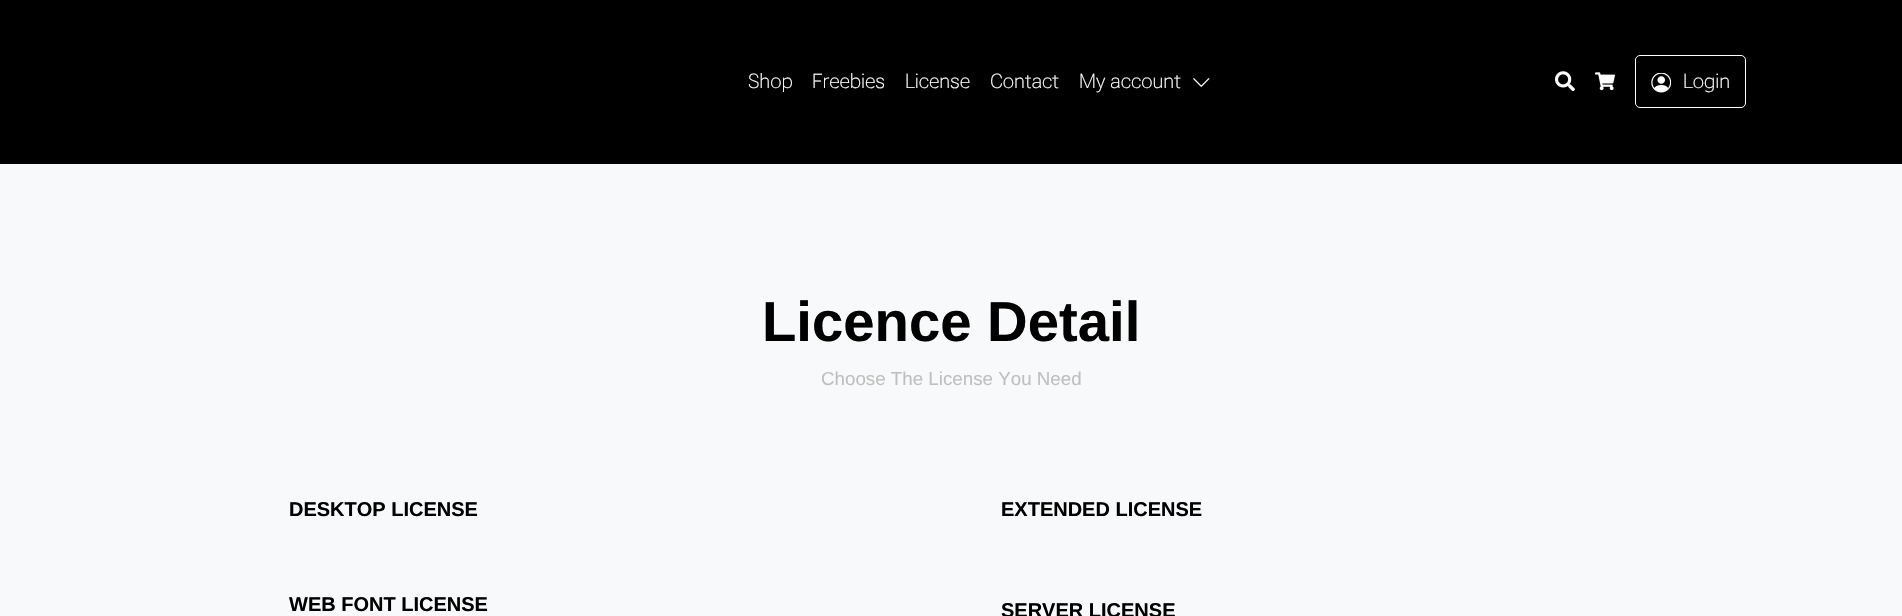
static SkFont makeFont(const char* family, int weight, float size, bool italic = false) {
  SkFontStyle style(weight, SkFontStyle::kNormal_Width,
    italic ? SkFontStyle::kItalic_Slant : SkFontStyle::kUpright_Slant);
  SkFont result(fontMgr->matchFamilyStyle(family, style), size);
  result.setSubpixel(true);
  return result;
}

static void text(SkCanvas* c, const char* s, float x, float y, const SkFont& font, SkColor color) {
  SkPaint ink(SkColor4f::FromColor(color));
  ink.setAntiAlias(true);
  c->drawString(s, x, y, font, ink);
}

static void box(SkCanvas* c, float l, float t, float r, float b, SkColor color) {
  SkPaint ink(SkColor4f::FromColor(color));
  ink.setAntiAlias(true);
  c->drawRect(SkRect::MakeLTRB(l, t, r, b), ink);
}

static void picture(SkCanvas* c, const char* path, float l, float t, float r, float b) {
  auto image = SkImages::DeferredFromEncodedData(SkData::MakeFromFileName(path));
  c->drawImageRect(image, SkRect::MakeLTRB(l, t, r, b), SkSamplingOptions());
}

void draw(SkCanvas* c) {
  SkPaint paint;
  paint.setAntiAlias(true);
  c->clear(0xfff8f9fa);
  box(c, 0, 0, 1902, 164, 0xff000000);
  SkFont face1 = makeFont("Roboto Flex", 100, 20);
  text(c, "Shop", 748, 88, face1, 0xffffffff);
  text(c, "Freebies", 812, 88, face1, 0xffffffff);
  text(c, "License", 905, 88, face1, 0xffffffff);
  text(c, "Contact", 990, 88, face1, 0xffffffff);
  text(c, "My account", 1079, 88, face1, 0xffffffff);
  picture(c, "img_01.png", 1193, 78, 1210, 87);
  picture(c, "img_02.png", 1555, 71, 1575, 91);
  picture(c, "img_03.png", 1595, 72, 1615, 91);
  paint.setStyle(SkPaint::kStroke_Style);
  paint.setStrokeWidth(1);
  paint.setColor(0xffffffff);
  c->drawRoundRect(SkRect::MakeLTRB(1635.5f, 55.5f, 1745.5f, 107.5f), 4.5f, 4.5f, paint);
  picture(c, "img_04.png", 1651, 73, 1671, 93);
  text(c, "Login", 1683, 88, face1, 0xffffffff);
  SkFont face2 = makeFont("Liberation Sans", 700, 56.25f);
  text(c, "Licence Detail", 762, 341, face2, 0xff000000);
  SkFont face3 = makeFont("Liberation Sans", 400, 18.75f);
  text(c, "Choose The License You Need", 821, 385, face3, 0xffbfbfbf);
  SkFont face4 = makeFont("Liberation Sans", 700, 20);
  text(c, "DESKTOP LICENSE", 289, 516, face4, 0xff000000);
  text(c, "WEB FONT LICENSE", 289, 611, face4, 0xff000000);
  text(c, "EXTENDED LICENSE", 1001, 516, face4, 0xff000000);
  text(c, "SERVER LICENSE", 1001, 617, face4, 0xff000000);
}
